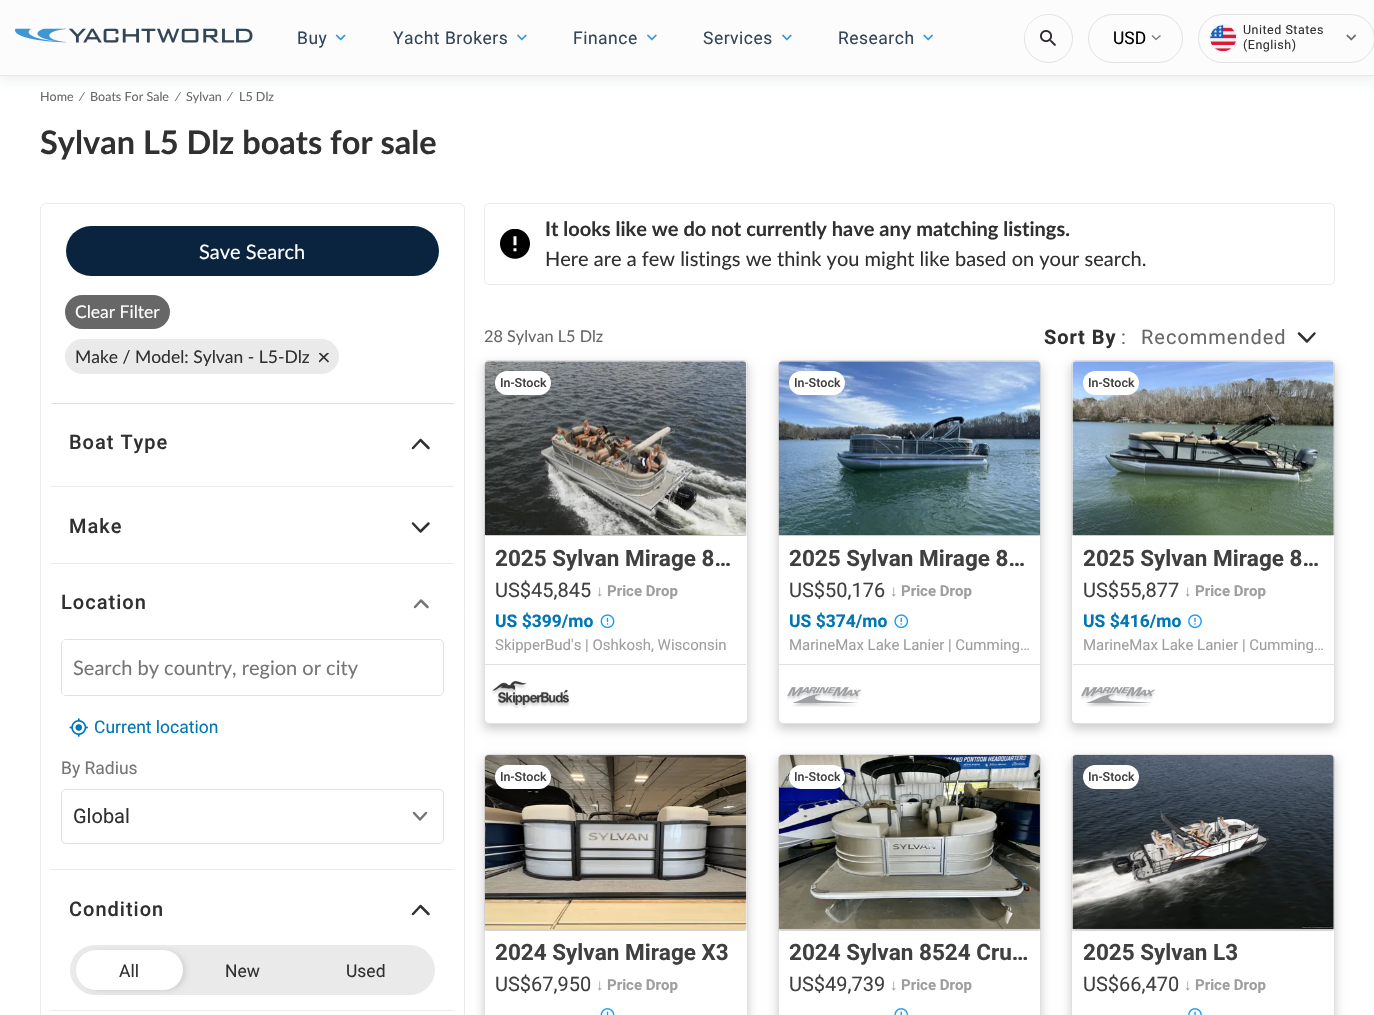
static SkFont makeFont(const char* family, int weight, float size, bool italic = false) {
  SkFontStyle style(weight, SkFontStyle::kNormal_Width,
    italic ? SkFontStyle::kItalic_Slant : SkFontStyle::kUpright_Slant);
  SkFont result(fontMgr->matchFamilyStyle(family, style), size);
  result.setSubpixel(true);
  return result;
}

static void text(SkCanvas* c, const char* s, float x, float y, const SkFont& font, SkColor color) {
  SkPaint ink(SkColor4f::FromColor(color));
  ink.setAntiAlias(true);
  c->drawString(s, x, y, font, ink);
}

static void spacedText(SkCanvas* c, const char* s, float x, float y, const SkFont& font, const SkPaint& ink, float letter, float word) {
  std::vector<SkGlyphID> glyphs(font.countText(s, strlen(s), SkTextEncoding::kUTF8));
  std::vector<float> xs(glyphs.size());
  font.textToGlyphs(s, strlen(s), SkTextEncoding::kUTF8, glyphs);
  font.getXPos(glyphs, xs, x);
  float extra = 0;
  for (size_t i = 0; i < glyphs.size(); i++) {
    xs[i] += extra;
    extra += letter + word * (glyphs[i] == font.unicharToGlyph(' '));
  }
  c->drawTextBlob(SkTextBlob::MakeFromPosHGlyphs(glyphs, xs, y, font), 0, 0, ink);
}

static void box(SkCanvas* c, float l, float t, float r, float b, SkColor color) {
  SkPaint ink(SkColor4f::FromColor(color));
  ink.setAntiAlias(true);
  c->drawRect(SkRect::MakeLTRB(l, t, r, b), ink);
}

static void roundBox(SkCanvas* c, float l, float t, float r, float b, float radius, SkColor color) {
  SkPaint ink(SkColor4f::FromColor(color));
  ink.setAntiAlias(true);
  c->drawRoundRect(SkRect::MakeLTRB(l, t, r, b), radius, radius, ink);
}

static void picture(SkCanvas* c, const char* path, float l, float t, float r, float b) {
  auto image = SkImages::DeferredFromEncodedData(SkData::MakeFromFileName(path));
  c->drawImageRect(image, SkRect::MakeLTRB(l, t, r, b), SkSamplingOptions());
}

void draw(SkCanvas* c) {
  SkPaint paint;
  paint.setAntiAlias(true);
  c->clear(0xffffffff);
  paint.setColor(0x1c445958);
  paint.setMaskFilter(SkMaskFilter::MakeBlur(kNormal_SkBlurStyle, 7));
  c->drawRect(SkRect::MakeLTRB(-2, -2, 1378, 79), paint);
  paint.setMaskFilter(nullptr);
  box(c, 0, 0, 1374, 75, 0xfffcfcfc);
  box(c, 0, 75, 1374, 76, 0xffeaeaea);
  picture(c, "img_01.png", 15, 28, 253, 43);
  picture(c, "img_02.png", 335, 34, 346, 41);
  SkFont face1 = makeFont("Roboto", 400, 17.5f);
  paint.setColor(0xff334557);
  spacedText(c, "Buy", 297, 44, face1, paint, 0.5f, 0);
  picture(c, "img_03.png", 517, 34, 527, 41);
  spacedText(c, "Yacht Brokers", 393, 44, face1, paint, 0.5f, 0);
  picture(c, "img_03.png", 647, 34, 657, 41);
  spacedText(c, "Finance", 573, 44, face1, paint, 0.5f, 0);
  picture(c, "img_03.png", 782, 34, 792, 41);
  spacedText(c, "Services", 703, 44, face1, paint, 0.5f, 0);
  picture(c, "img_04.png", 923, 34, 933, 41);
  spacedText(c, "Research", 838, 44, face1, paint, 0.5f, 0);
  paint.setStyle(SkPaint::kStroke_Style);
  paint.setStrokeWidth(1);
  paint.setColor(0xffdee2e3);
  c->drawCircle(1048.5f, 38.5f, 24, paint);
  paint.setStyle(SkPaint::kFill_Style);
  paint.setColor(0xfffcfcfc);
  c->drawCircle(1048, 38, 23, paint);
  picture(c, "img_05.png", 1040, 30, 1056, 46);
  paint.setStyle(SkPaint::kStroke_Style);
  paint.setColor(0xffdee2e3);
  c->drawRoundRect(SkRect::MakeLTRB(1088.5f, 14.5f, 1182.5f, 62.5f), 24, 24, paint);
  text(c, "USD", 1113, 44, face1, 0xff000000);
  paint.setStrokeWidth(1.2f);
  paint.setColor(0xff707070);
  c->drawPath(SkPathBuilder().moveTo(1152, 35.5f).lineTo(1156, 39.5f).lineTo(1160.5f, 35.5f).detach(), paint);
  paint.setStrokeWidth(1);
  paint.setColor(0xffdee2e3);
  c->drawRoundRect(SkRect::MakeLTRB(1198.5f, 14.5f, 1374.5f, 62.5f), 24, 24, paint);
  picture(c, "img_06.png", 1210, 25, 1236, 51);
  paint.setColor(0xffeff1f1);
  c->drawCircle(1223.5f, 38.5f, 14, paint);
  SkFont face2 = makeFont("Roboto", 400, 12.5f);
  paint.setStyle(SkPaint::kFill_Style);
  paint.setColor(0xff303030);
  spacedText(c, "United States", 1243, 34, face2, paint, 0.5f, 0);
  spacedText(c, "(English)", 1243, 49, face2, paint, 0.5f, 0);
  picture(c, "img_07.png", 1346, 34, 1356, 41);
  SkFont face3 = makeFont("Lato", 400, 12.5f);
  text(c, "Home", 40, 101, face3, 0xff676767);
  text(c, "⁄", 81, 101, face3, 0xff676767);
  text(c, "Boats For Sale", 90, 101, face3, 0xff676767);
  text(c, "⁄", 177, 101, face3, 0xff676767);
  text(c, "Sylvan", 186, 101, face3, 0xff676767);
  text(c, "⁄", 229, 101, face3, 0xff676767);
  text(c, "L5 Dlz", 239, 101, face3, 0xff676767);
  SkFont face4 = makeFont("Lato", 700, 32.5f);
  text(c, "Sylvan L5 Dlz boats for sale", 40, 154, face4, 0xff303030);
  paint.setStyle(SkPaint::kStroke_Style);
  paint.setColor(0xffeaeaea);
  c->drawRoundRect(SkRect::MakeLTRB(40.5f, 203.5f, 464.5f, 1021.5f), 5.5f, 5.5f, paint);
  roundBox(c, 66, 226, 439, 276, 25, 0xff0a243f);
  SkFont face5 = makeFont("Lato", 400, 20);
  text(c, "Save Search", 199, 259, face5, 0xffffffff);
  box(c, 51, 403, 454, 404, 0xffdddddd);
  roundBox(c, 65, 295, 170, 329, 17, 0xff676767);
  SkFont face6 = makeFont("Lato", 400, 17.5f);
  text(c, "Clear Filter", 75, 318, face6, 0xffffffff);
  roundBox(c, 65, 339, 339, 374, 17.5f, 0xffeaeaea);
  text(c, "Make / Model: Sylvan - L5-Dlz", 75, 363, face6, 0xff303030);
  c->save();
  c->clipRect(SkRect::MakeLTRB(319, 353, 329, 363));
  paint.setStrokeWidth(1.6f);
  paint.setColor(0xff303030);
  c->drawPath(SkPathBuilder().moveTo(328.5f, 352.5f).lineTo(319, 362).moveTo(328.5f, 362).lineTo(319, 352.5f).detach(), paint);
  c->restore();
  box(c, 51, 486, 454, 487, 0xffeaeaea);
  SkFont face7 = makeFont("Roboto", 500, 20);
  paint.setStyle(SkPaint::kFill_Style);
  spacedText(c, "Boat Type", 69, 449, face7, paint, 1, 0);
  paint.setStyle(SkPaint::kStroke_Style);
  paint.setStrokeWidth(2.5f);
  paint.setStrokeCap(SkPaint::kRound_Cap);
  paint.setStrokeJoin(SkPaint::kRound_Join);
  c->drawPath(SkPathBuilder().moveTo(428.5f, 448).lineTo(420.5f, 440).lineTo(413, 448).detach(), paint);
  box(c, 51, 563, 454, 564, 0xffeaeaea);
  paint.setStyle(SkPaint::kFill_Style);
  spacedText(c, "Make", 69, 533, face7, paint, 1, 0);
  paint.setStyle(SkPaint::kStroke_Style);
  c->drawPath(SkPathBuilder().moveTo(413, 523.5f).lineTo(420.5f, 531.5f).lineTo(428.5f, 523.5f).detach(), paint);
  box(c, 51, 869, 454, 870, 0xffeaeaea);
  paint.setStyle(SkPaint::kFill_Style);
  spacedText(c, "Location", 61, 609, face7, paint, 1, 0);
  paint.setStyle(SkPaint::kStroke_Style);
  paint.setColor(0xff757575);
  c->drawPath(SkPathBuilder().moveTo(427.5f, 607).lineTo(421, 600.5f).lineTo(415, 607).detach(), paint);
  paint.setStrokeWidth(1);
  paint.setStrokeCap(SkPaint::kButt_Cap);
  paint.setStrokeJoin(SkPaint::kMiter_Join);
  paint.setColor(0xffdee2e3);
  c->drawRoundRect(SkRect::MakeLTRB(61.5f, 639.5f, 443.5f, 695.5f), 4.5f, 4.5f, paint);
  box(c, 63, 640, 65, 695, 0xffffffff);
  text(c, "Search by country, region or city", 73, 675, face5, 0xff757575);
  picture(c, "img_08.png", 69, 718, 88, 737);
  text(c, "Current location", 94, 733, face1, 0xff0077b3);
  text(c, "By Radius", 61, 774, face1, 0xff757575);
  c->drawRoundRect(SkRect::MakeLTRB(61.5f, 789.5f, 443.5f, 843.5f), 4.5f, 4.5f, paint);
  SkFont face8 = makeFont("Roboto", 400, 20);
  text(c, "Global", 73, 823, face8, 0xff303030);
  paint.setStrokeWidth(2.5f);
  paint.setStrokeCap(SkPaint::kRound_Cap);
  paint.setStrokeJoin(SkPaint::kRound_Join);
  paint.setColor(0xff757575);
  c->drawPath(SkPathBuilder().moveTo(414, 813).lineTo(420, 819.5f).lineTo(426, 813).detach(), paint);
  box(c, 51, 1010, 454, 1011, 0xffeaeaea);
  paint.setStyle(SkPaint::kFill_Style);
  paint.setColor(0xff303030);
  spacedText(c, "Condition", 69, 916, face7, paint, 1, 0);
  paint.setStyle(SkPaint::kStroke_Style);
  c->drawPath(SkPathBuilder().moveTo(428.5f, 914).lineTo(420.5f, 906).lineTo(413, 914).detach(), paint);
  paint.setStyle(SkPaint::kFill_Style);
  paint.setColor(0xffeaeaea);
  c->drawRoundRect(SkRect::MakeLTRB(70.5f, 945.5f, 434.5f, 994.5f), 24.5f, 24.5f, paint);
  paint.setStyle(SkPaint::kStroke_Style);
  paint.setStrokeWidth(1);
  paint.setStrokeCap(SkPaint::kButt_Cap);
  paint.setStrokeJoin(SkPaint::kMiter_Join);
  c->drawRoundRect(SkRect::MakeLTRB(70.5f, 945.5f, 434.5f, 994.5f), 24.5f, 24.5f, paint);
  paint.setStyle(SkPaint::kFill_Style);
  paint.setColor(0x1a000000);
  paint.setMaskFilter(SkMaskFilter::MakeBlur(kNormal_SkBlurStyle, 2.5f));
  c->drawRoundRect(SkRect::MakeLTRB(80, 951, 186, 991), 20, 20, paint);
  paint.setMaskFilter(nullptr);
  roundBox(c, 76, 950, 183, 990, 20, 0xffffffff);
  text(c, "All", 119, 977, face1, 0xff303030);
  text(c, "New", 225, 977, face1, 0xff303030);
  text(c, "Used", 346, 977, face1, 0xff303030);
  paint.setStyle(SkPaint::kStroke_Style);
  paint.setColor(0xffeaeaea);
  c->drawRoundRect(SkRect::MakeLTRB(484.5f, 203.5f, 1334.5f, 284.5f), 4.5f, 4.5f, paint);
  picture(c, "img_09.png", 500, 229, 530, 259);
  SkFont face9 = makeFont("Lato", 700, 20);
  text(c, "It looks like we do not currently have any matching listings.", 545, 236, face9, 0xff303030);
  text(c, "Here are a few listings we think you might like based on your search.", 545, 266, face5, 0xff303030);
  SkFont face10 = makeFont("Lato", 400, 16.25f);
  text(c, "28 Sylvan L5 Dlz", 484, 342, face10, 0xff676767);
  SkFont face11 = makeFont("Roboto", 700, 20);
  paint.setStyle(SkPaint::kFill_Style);
  paint.setColor(0xff303030);
  spacedText(c, "Sort By", 1044, 344, face11, paint, 1, 0);
  paint.setColor(0xff676767);
  spacedText(c, ":", 1121, 344, face8, paint, 1, 0);
  spacedText(c, "Recommended", 1141, 344, face8, paint, 1, 0);
  paint.setStyle(SkPaint::kStroke_Style);
  paint.setStrokeWidth(2.5f);
  paint.setStrokeCap(SkPaint::kRound_Cap);
  paint.setStrokeJoin(SkPaint::kRound_Join);
  paint.setColor(0xff303030);
  c->drawPath(SkPathBuilder().moveTo(1299, 333.5f).lineTo(1307, 341.5f).lineTo(1314.5f, 333.5f).detach(), paint);
  paint.setStyle(SkPaint::kFill_Style);
  paint.setColor(0x33000000);
  paint.setMaskFilter(SkMaskFilter::MakeBlur(kNormal_SkBlurStyle, 5));
  c->drawRect(SkRect::MakeLTRB(484, 365, 748, 729), paint);
  paint.setMaskFilter(nullptr);
  paint.setColor(0xffffffff);
  c->drawRoundRect(SkRect::MakeLTRB(484.5f, 360.5f, 747.5f, 723.5f), 4.5f, 4.5f, paint);
  paint.setStyle(SkPaint::kStroke_Style);
  paint.setStrokeWidth(1);
  paint.setStrokeCap(SkPaint::kButt_Cap);
  paint.setStrokeJoin(SkPaint::kMiter_Join);
  paint.setColor(0xffe0e0e0);
  c->drawRoundRect(SkRect::MakeLTRB(484.5f, 360.5f, 747.5f, 723.5f), 4.5f, 4.5f, paint);
  picture(c, "img_10.png", 484, 361, 747, 536);
  roundBox(c, 495, 371, 551, 395, 12, 0xffffffff);
  SkFont face12 = makeFont("Roboto", 500, 12.5f);
  text(c, "In-Stock", 500, 387, face12, 0xff404040);
  SkFont face13 = makeFont("Roboto", 700, 22.5f);
  text(c, "2025 Sylvan Mirage 8…", 495, 566, face13, 0xff404040);
  text(c, "US$45,845", 495, 597, face8, 0xff404040);
  SkFont face14 = makeFont("Liberation Sans", 700, 15);
  text(c, "↓", 596, 596, face14, 0xff9e9e9e);
  SkFont face15 = makeFont("Roboto", 700, 15);
  text(c, "Price Drop", 607, 596, face15, 0xff9e9e9e);
  SkFont face16 = makeFont("Roboto", 700, 17.5f);
  text(c, "US $399/mo", 495, 627, face16, 0xff0077b3);
  picture(c, "img_11.png", 600, 614, 615, 629);
  SkFont face17 = makeFont("Roboto", 400, 15);
  text(c, "SkipperBud's | Oshkosh, Wisconsin", 495, 650, face17, 0xff9e9e9e);
  box(c, 485, 664, 746, 665, 0xffe0e0e0);
  picture(c, "img_12.png", 492, 681, 570, 709);
  paint.setStyle(SkPaint::kFill_Style);
  paint.setColor(0x33000000);
  paint.setMaskFilter(SkMaskFilter::MakeBlur(kNormal_SkBlurStyle, 5));
  c->drawRect(SkRect::MakeLTRB(778, 365, 1041, 729), paint);
  paint.setMaskFilter(nullptr);
  paint.setColor(0xffffffff);
  c->drawRoundRect(SkRect::MakeLTRB(778.5f, 360.5f, 1040.5f, 723.5f), 4.5f, 4.5f, paint);
  paint.setStyle(SkPaint::kStroke_Style);
  paint.setColor(0xffe0e0e0);
  c->drawRoundRect(SkRect::MakeLTRB(778.5f, 360.5f, 1040.5f, 723.5f), 4.5f, 4.5f, paint);
  picture(c, "img_13.png", 778, 361, 1041, 536);
  roundBox(c, 789, 371, 845, 395, 12, 0xffffffff);
  text(c, "In-Stock", 794, 387, face12, 0xff404040);
  text(c, "2025 Sylvan Mirage 8…", 789, 566, face13, 0xff404040);
  text(c, "US$50,176", 789, 597, face8, 0xff404040);
  text(c, "↓", 890, 596, face14, 0xff9e9e9e);
  text(c, "Price Drop", 901, 596, face15, 0xff9e9e9e);
  text(c, "US $374/mo", 789, 627, face16, 0xff0077b3);
  picture(c, "img_14.png", 894, 614, 909, 629);
  text(c, "MarineMax Lake Lanier | Cumming…", 789, 650, face17, 0xff9e9e9e);
  box(c, 779, 664, 1040, 665, 0xffe0e0e0);
  picture(c, "img_15.png", 787, 687, 862, 707);
  paint.setStyle(SkPaint::kFill_Style);
  paint.setColor(0x33000000);
  paint.setMaskFilter(SkMaskFilter::MakeBlur(kNormal_SkBlurStyle, 5));
  c->drawRect(SkRect::MakeLTRB(1071, 365, 1335, 729), paint);
  paint.setMaskFilter(nullptr);
  paint.setColor(0xffffffff);
  c->drawRoundRect(SkRect::MakeLTRB(1071.5f, 360.5f, 1334.5f, 723.5f), 4.5f, 4.5f, paint);
  paint.setStyle(SkPaint::kStroke_Style);
  paint.setColor(0xffe0e0e0);
  c->drawRoundRect(SkRect::MakeLTRB(1071.5f, 360.5f, 1334.5f, 723.5f), 4.5f, 4.5f, paint);
  picture(c, "img_16.png", 1071, 361, 1335, 536);
  roundBox(c, 1083, 371, 1139, 395, 12, 0xffffffff);
  text(c, "In-Stock", 1088, 387, face12, 0xff404040);
  text(c, "2025 Sylvan Mirage 8…", 1083, 566, face13, 0xff404040);
  text(c, "US$55,877", 1083, 597, face8, 0xff404040);
  text(c, "↓", 1184, 596, face14, 0xff9e9e9e);
  text(c, "Price Drop", 1195, 596, face15, 0xff9e9e9e);
  text(c, "US $416/mo", 1083, 627, face16, 0xff0077b3);
  picture(c, "img_17.png", 1188, 614, 1202, 629);
  text(c, "MarineMax Lake Lanier | Cumming…", 1083, 650, face17, 0xff9e9e9e);
  box(c, 1073, 664, 1334, 665, 0xffe0e0e0);
  picture(c, "img_18.png", 1080, 687, 1155, 707);
  paint.setStyle(SkPaint::kFill_Style);
  paint.setColor(0x33000000);
  paint.setMaskFilter(SkMaskFilter::MakeBlur(kNormal_SkBlurStyle, 5));
  c->drawRect(SkRect::MakeLTRB(484, 759, 748, 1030), paint);
  paint.setMaskFilter(nullptr);
  paint.setColor(0xffffffff);
  c->drawRoundRect(SkRect::MakeLTRB(484.5f, 754.5f, 747.5f, 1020.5f), 4.5f, 4.5f, paint);
  paint.setStyle(SkPaint::kStroke_Style);
  paint.setColor(0xffe0e0e0);
  c->drawRoundRect(SkRect::MakeLTRB(484.5f, 754.5f, 747.5f, 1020.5f), 4.5f, 4.5f, paint);
  picture(c, "img_19.png", 484, 755, 748, 931);
  roundBox(c, 495, 765, 551, 789, 12, 0xffffffff);
  text(c, "In-Stock", 500, 781, face12, 0xff404040);
  text(c, "2024 Sylvan Mirage X3", 495, 960, face13, 0xff404040);
  text(c, "US$67,950", 495, 991, face8, 0xff404040);
  text(c, "↓", 596, 990, face14, 0xff9e9e9e);
  text(c, "Price Drop", 607, 990, face15, 0xff9e9e9e);
  picture(c, "img_20.png", 600, 1008, 615, 1015);
  c->save();
  c->clipPath(SkPathBuilder(SkPathFillType::kEvenOdd).moveTo(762, 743).lineTo(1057, 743).lineTo(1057, 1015).lineTo(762, 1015).close().moveTo(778, 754).lineTo(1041, 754).lineTo(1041, 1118).lineTo(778, 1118).close().detach(), true);
  paint.setStyle(SkPaint::kFill_Style);
  paint.setColor(0x33000000);
  paint.setMaskFilter(SkMaskFilter::MakeBlur(kNormal_SkBlurStyle, 5));
  c->drawRect(SkRect::MakeLTRB(778, 759, 1041, 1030), paint);
  paint.setMaskFilter(nullptr);
  c->restore();
  paint.setStyle(SkPaint::kStroke_Style);
  paint.setColor(0xffe0e0e0);
  c->drawRoundRect(SkRect::MakeLTRB(778.5f, 754.5f, 1040.5f, 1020.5f), 4.5f, 4.5f, paint);
  picture(c, "img_21.png", 778, 755, 1041, 931);
  roundBox(c, 789, 765, 845, 789, 12, 0xffffffff);
  text(c, "In-Stock", 794, 781, face12, 0xff404040);
  text(c, "2024 Sylvan 8524 Cru…", 789, 960, face13, 0xff404040);
  text(c, "US$49,739", 789, 991, face8, 0xff404040);
  text(c, "↓", 890, 990, face14, 0xff9e9e9e);
  text(c, "Price Drop", 901, 990, face15, 0xff9e9e9e);
  picture(c, "img_22.png", 894, 1008, 909, 1015);
  paint.setStyle(SkPaint::kFill_Style);
  paint.setColor(0x33000000);
  paint.setMaskFilter(SkMaskFilter::MakeBlur(kNormal_SkBlurStyle, 5));
  c->drawRect(SkRect::MakeLTRB(1071, 759, 1335, 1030), paint);
  paint.setMaskFilter(nullptr);
  paint.setColor(0xffffffff);
  c->drawRoundRect(SkRect::MakeLTRB(1071.5f, 754.5f, 1334.5f, 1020.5f), 4.5f, 4.5f, paint);
  paint.setStyle(SkPaint::kStroke_Style);
  paint.setColor(0xffe0e0e0);
  c->drawRoundRect(SkRect::MakeLTRB(1071.5f, 754.5f, 1334.5f, 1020.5f), 4.5f, 4.5f, paint);
  picture(c, "img_23.png", 1071, 755, 1335, 931);
  roundBox(c, 1083, 765, 1139, 789, 12, 0xffffffff);
  text(c, "In-Stock", 1088, 781, face12, 0xff404040);
  text(c, "2025 Sylvan L3", 1083, 960, face13, 0xff404040);
  text(c, "US$66,470", 1083, 991, face8, 0xff404040);
  text(c, "↓", 1184, 990, face14, 0xff9e9e9e);
  text(c, "Price Drop", 1195, 990, face15, 0xff9e9e9e);
  picture(c, "img_24.png", 1188, 1008, 1202, 1015);
}
